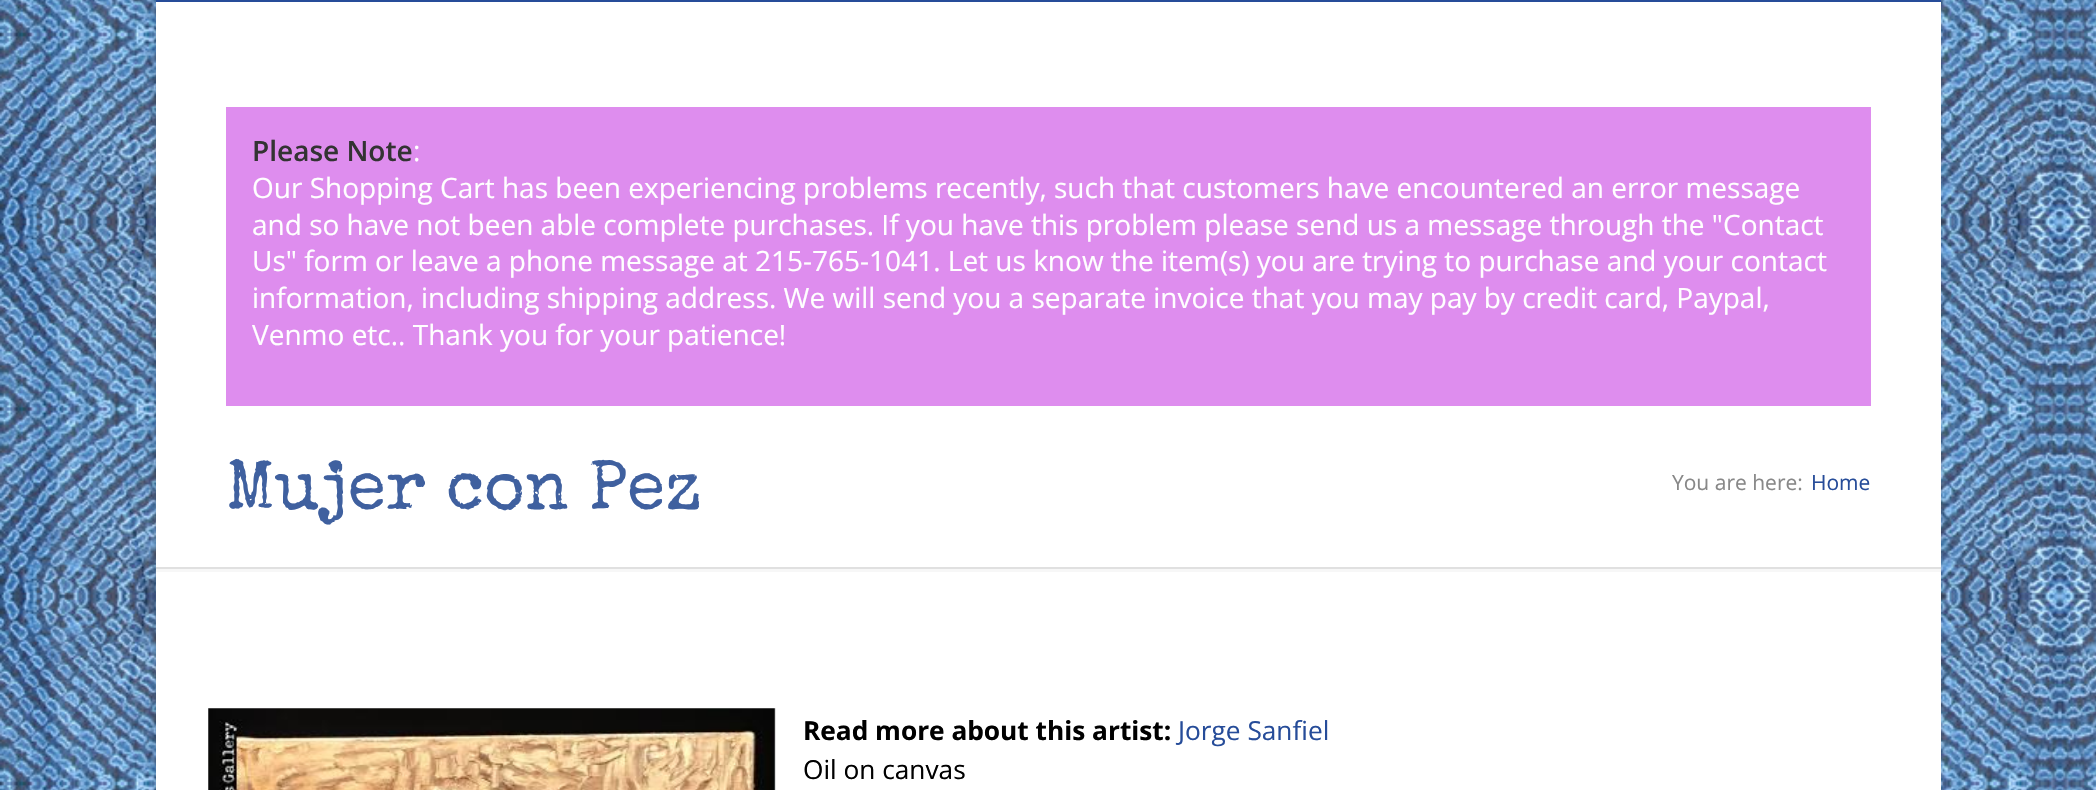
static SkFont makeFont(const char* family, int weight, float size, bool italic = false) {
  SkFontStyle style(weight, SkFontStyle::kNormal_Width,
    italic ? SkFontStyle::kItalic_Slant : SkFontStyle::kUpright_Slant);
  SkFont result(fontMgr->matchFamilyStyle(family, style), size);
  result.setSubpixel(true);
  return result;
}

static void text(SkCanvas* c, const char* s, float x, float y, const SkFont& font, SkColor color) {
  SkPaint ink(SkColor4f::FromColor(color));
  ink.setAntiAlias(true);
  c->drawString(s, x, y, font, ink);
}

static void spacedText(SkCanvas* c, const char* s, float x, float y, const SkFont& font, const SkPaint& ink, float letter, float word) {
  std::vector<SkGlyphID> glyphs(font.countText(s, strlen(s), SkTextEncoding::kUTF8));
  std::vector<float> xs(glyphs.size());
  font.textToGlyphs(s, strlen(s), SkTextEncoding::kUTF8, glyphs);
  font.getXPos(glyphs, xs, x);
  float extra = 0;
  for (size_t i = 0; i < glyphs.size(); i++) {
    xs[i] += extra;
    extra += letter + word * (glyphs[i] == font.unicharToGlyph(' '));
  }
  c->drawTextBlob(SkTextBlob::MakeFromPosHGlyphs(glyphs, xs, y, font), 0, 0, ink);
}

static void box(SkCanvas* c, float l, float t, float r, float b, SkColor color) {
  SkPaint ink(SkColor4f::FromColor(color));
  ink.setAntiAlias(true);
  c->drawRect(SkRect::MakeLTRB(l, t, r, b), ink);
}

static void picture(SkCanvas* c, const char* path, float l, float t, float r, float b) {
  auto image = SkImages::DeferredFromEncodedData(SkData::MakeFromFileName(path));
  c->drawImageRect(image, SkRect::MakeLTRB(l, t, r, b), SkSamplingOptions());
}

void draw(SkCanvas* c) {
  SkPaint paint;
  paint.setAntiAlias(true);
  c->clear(0xffffffff);
  picture(c, "img_01.png", 0, 0, 2096, 790);
  paint.setColor(0x33000000);
  paint.setMaskFilter(SkMaskFilter::MakeBlur(kNormal_SkBlurStyle, 3.5f));
  c->drawRect(SkRect::MakeLTRB(156, -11, 1941, 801), paint);
  paint.setMaskFilter(nullptr);
  box(c, 156, 2, 1941, 790, 0xffffffff);
  box(c, 156, 0, 1941, 2, 0xff264c99);
  box(c, 226, 107, 1871, 406, 0xffde8dee);
  SkFont face1 = makeFont("Open Sans", 600, 28);
  text(c, "Please Note", 252, 161, face1, 0xff333333);
  SkFont face2 = makeFont("Open Sans", 400, 28);
  text(c, ":", 413, 161, face2, 0xffffffff);
  text(c, "Our Shopping Cart has been experiencing problems recently, such that customers have encountered an error message", 252, 198, face2, 0xffffffff);
  text(c, "and so have not been able complete purchases. If you have this problem please send us a message through the \"Contact", 252, 235, face2, 0xffffffff);
  text(c, "Us\" form or leave a phone message at 215-765-1041. Let us know the item(s) you are trying to purchase and your contact", 252, 271, face2, 0xffffffff);
  text(c, "information, including shipping address. We will send you a separate invoice that you may pay by credit card, Paypal,", 252, 308, face2, 0xffffffff);
  text(c, "Venmo etc.. Thank you for your patience!", 252, 345, face2, 0xffffffff);
  paint.setColor(0xfff7f7f7);
  c->drawPath(SkPathBuilder().moveTo(156, 569).lineTo(156, 572).lineTo(1941, 572).lineTo(1941, 410).lineTo(1941, 569).close().detach(), paint);
  box(c, 156, 567, 1941, 569, 0xffe0e0e0);
  SkFont face3 = makeFont("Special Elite", 400, 70);
  paint.setColor(0xff3f609f);
  spacedText(c, "Mujer con Pez", 226, 508, face3, paint, -0.3f, 0);
  SkFont face4 = makeFont("Open Sans", 400, 21);
  text(c, "You are here:", 1672, 490, face4, 0xff888888);
  text(c, "Home", 1811, 490, face4, 0xff264c99);
  picture(c, "img_02.png", 208, 708, 776, 790);
  SkFont face5 = makeFont("Open Sans", 700, 26.25f);
  text(c, "Read more about this artist:", 803, 740, face5, 0xff000000);
  SkFont face6 = makeFont("Open Sans", 400, 26.25f);
  text(c, "Jorge Sanfiel", 1178, 740, face6, 0xff264c99);
  text(c, "Oil on canvas", 803, 779, face6, 0xff000000);
}
